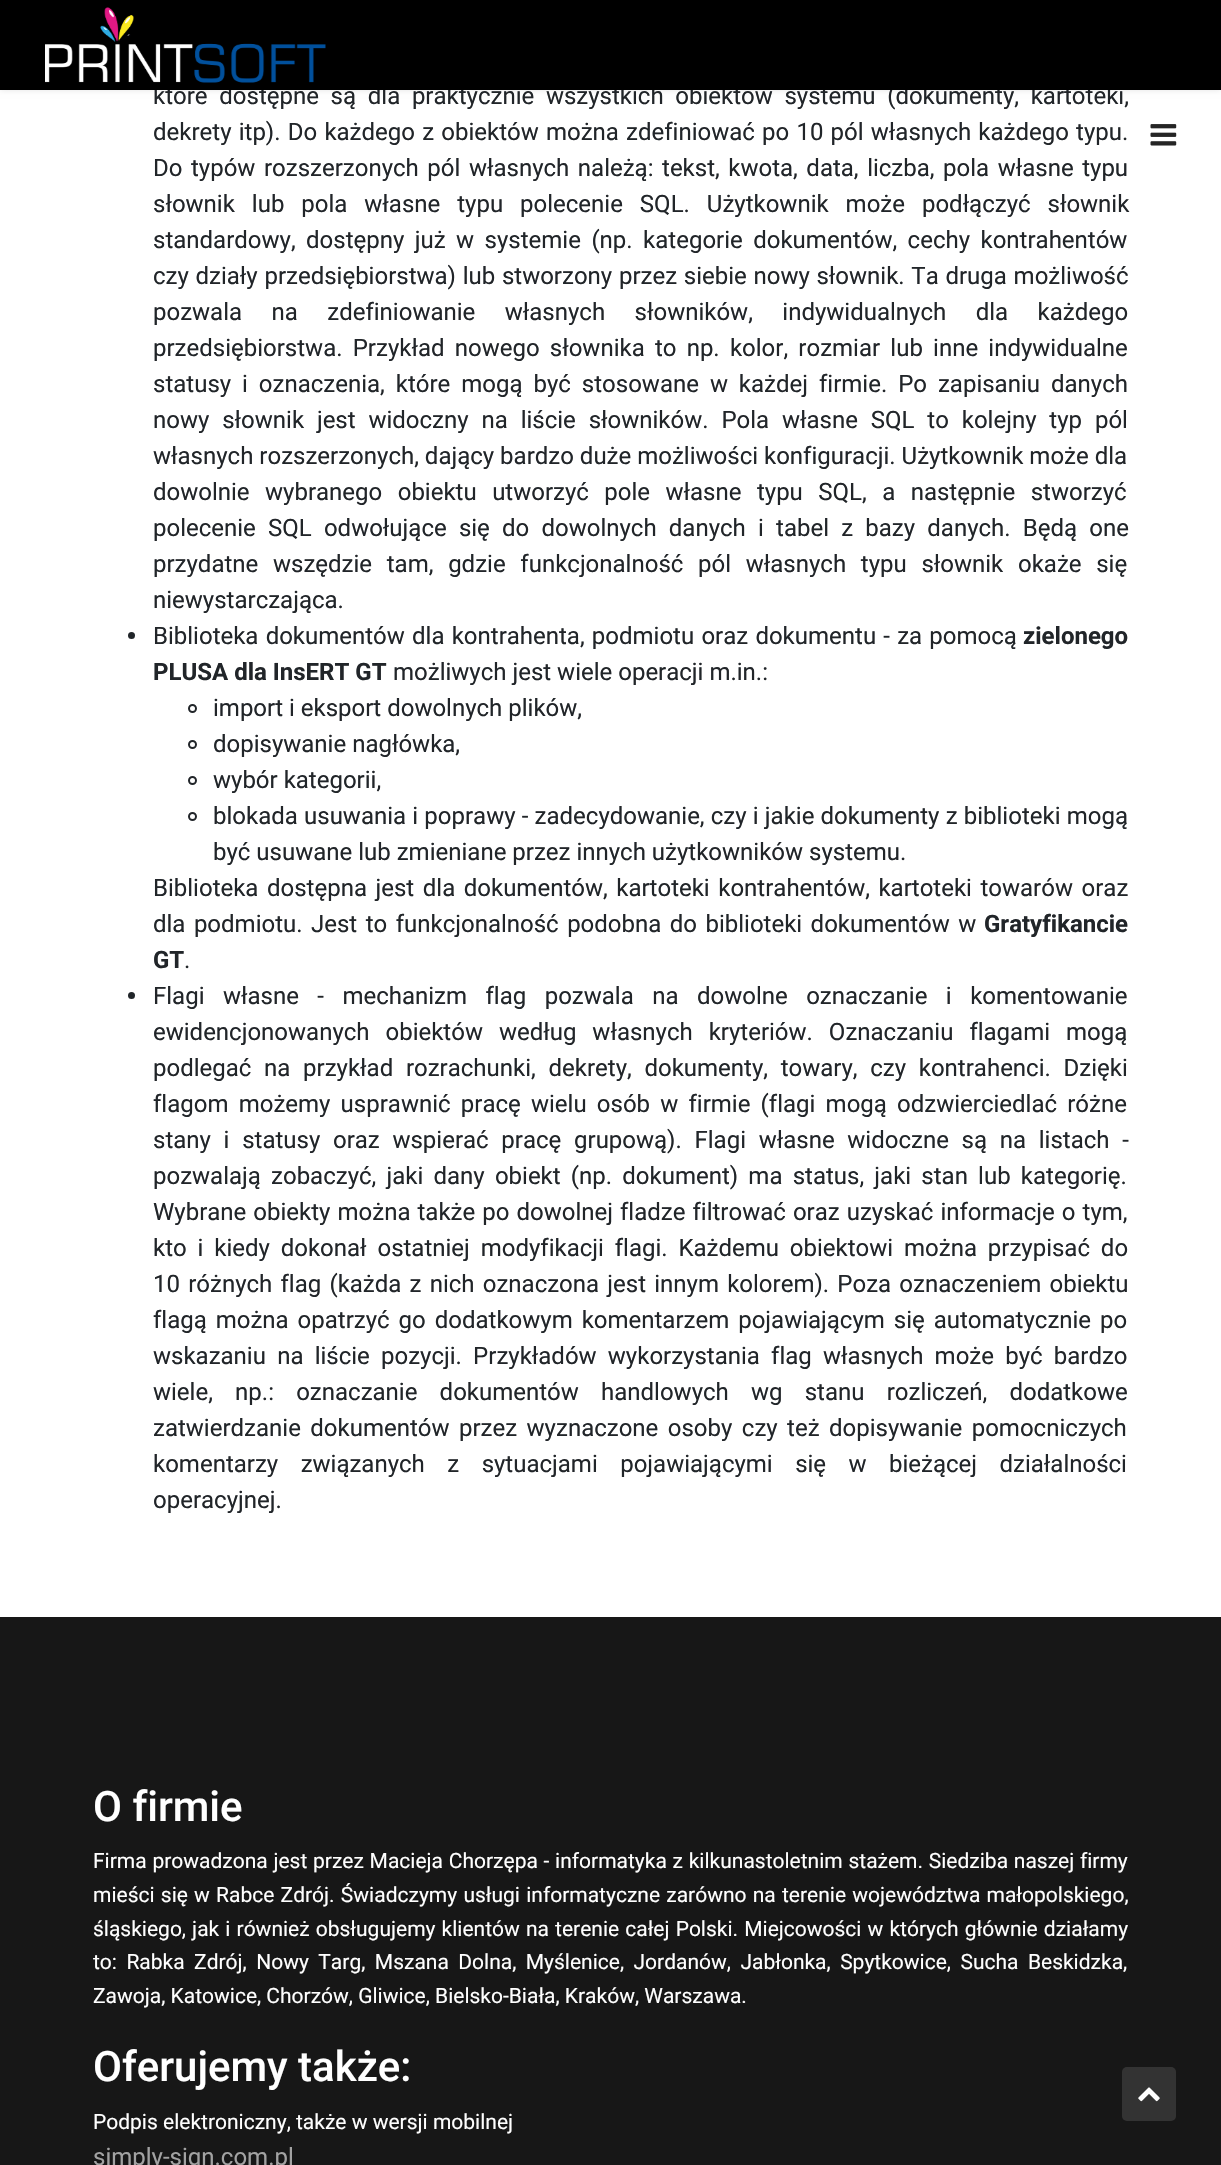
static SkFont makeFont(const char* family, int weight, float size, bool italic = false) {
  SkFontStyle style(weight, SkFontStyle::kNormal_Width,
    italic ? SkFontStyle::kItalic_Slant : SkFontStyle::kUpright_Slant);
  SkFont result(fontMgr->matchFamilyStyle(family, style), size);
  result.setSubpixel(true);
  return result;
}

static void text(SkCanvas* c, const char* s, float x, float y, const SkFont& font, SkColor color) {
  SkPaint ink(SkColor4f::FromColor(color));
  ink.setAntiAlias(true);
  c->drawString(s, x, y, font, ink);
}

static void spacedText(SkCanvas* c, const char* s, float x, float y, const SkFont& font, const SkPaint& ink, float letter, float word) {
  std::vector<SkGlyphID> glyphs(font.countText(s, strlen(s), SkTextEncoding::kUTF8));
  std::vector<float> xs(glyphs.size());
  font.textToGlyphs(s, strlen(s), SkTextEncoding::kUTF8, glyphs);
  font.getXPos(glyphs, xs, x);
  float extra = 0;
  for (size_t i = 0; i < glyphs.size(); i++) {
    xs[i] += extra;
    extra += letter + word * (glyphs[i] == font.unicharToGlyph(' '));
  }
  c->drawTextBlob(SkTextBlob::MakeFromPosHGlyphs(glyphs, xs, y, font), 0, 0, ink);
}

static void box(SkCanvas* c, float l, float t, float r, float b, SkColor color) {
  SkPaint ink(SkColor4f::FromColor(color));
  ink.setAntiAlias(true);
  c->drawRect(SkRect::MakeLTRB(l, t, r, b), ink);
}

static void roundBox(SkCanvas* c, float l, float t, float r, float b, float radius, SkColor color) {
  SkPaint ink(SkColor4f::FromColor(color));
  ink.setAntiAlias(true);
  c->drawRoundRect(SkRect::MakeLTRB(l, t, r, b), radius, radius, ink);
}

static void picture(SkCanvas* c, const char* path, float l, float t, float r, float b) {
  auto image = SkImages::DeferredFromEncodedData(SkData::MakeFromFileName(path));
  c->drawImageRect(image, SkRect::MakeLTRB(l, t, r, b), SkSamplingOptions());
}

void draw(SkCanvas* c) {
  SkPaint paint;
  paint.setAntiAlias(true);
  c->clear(0xffffffff);
  paint.setColor(0x1a000000);
  paint.setMaskFilter(SkMaskFilter::MakeBlur(kNormal_SkBlurStyle, 3));
  c->drawRect(SkRect::MakeLTRB(0, 0, 1221, 90), paint);
  paint.setMaskFilter(nullptr);
  SkFont face1 = makeFont("Roboto", 400, 24);
  paint.setColor(0xff212529);
  spacedText(c, "które dostępne są dla praktycznie wszystkich obiektów systemu (dokumenty, kartoteki,", 153, 104, face1, paint, 0, 5.75f);
  box(c, 0, 0, 1221, 90, 0xff000000);
  picture(c, "img_01.png", 45, 7, 326, 83);
  picture(c, "img_02.png", 1150, 124, 1177, 146);
  spacedText(c, "dekrety itp). Do każdego z obiektów można zdefiniować po 10 pól własnych każdego typu.", 153, 140, face1, paint, 0, 1.25f);
  spacedText(c, "Do typów rozszerzonych pól własnych należą: tekst, kwota, data, liczba, pola własne typu", 153, 176, face1, paint, 0, 2.6f);
  spacedText(c, "słownik lub pola własne typu polecenie SQL. Użytkownik może podłączyć słownik", 153, 212, face1, paint, 0, 11);
  spacedText(c, "standardowy, dostępny już w systemie (np. kategorie dokumentów, cechy kontrahentów", 153, 248, face1, paint, 0, 4.5f);
  spacedText(c, "czy działy przedsiębiorstwa) lub stworzony przez siebie nowy słownik. Ta druga możliwość", 153, 284, face1, paint, 0, 0.75f);
  spacedText(c, "pozwala na zdefiniowanie własnych słowników, indywidualnych dla każdego", 153, 320, face1, paint, 0, 23.5f);
  spacedText(c, "przedsiębiorstwa. Przykład nowego słownika to np. kolor, rozmiar lub inne indywidualne", 153, 356, face1, paint, 0, 4.25f);
  spacedText(c, "statusy i oznaczenia, które mogą być stosowane w każdej firmie. Po zapisaniu danych", 153, 392, face1, paint, 0, 5);
  spacedText(c, "nowy słownik jest widoczny na liście słowników. Pola własne SQL to kolejny typ pól", 153, 428, face1, paint, 0, 6.9f);
  text(c, "własnych rozszerzonych, dający bardzo duże możliwości konfiguracji. Użytkownik może dla", 153, 464, face1, 0xff212529);
  spacedText(c, "dowolnie wybranego obiektu utworzyć pole własne typu SQL, a następnie stworzyć", 153, 500, face1, paint, 0, 9.5f);
  spacedText(c, "polecenie SQL odwołujące się do dowolnych danych i tabel z bazy danych. Będą one", 153, 536, face1, paint, 0, 6.25f);
  spacedText(c, "przydatne wszędzie tam, gdzie funkcjonalność pól własnych typu słownik okaże się", 153, 572, face1, paint, 0, 8.75f);
  text(c, "niewystarczająca.", 153, 608, face1, 0xff212529);
  c->drawCircle(131.5f, 635.5f, 3.5f, paint);
  spacedText(c, "Biblioteka dokumentów dla kontrahenta, podmiotu oraz dokumentu - za pomocą", 153, 644, face1, paint, 0, 1.25f);
  SkFont face2 = makeFont("Roboto", 700, 24);
  text(c, "zielonego", 1023, 644, face2, 0xff212529);
  text(c, "PLUSA dla InsERT GT", 153, 680, face2, 0xff212529);
  text(c, "możliwych jest wiele operacji m.in.:", 393, 680, face1, 0xff212529);
  paint.setStyle(SkPaint::kStroke_Style);
  paint.setStrokeWidth(2);
  c->drawCircle(192.5f, 708.5f, 3.5f, paint);
  text(c, "import i eksport dowolnych plików,", 213, 716, face1, 0xff212529);
  c->drawCircle(192.5f, 744.5f, 3.5f, paint);
  text(c, "dopisywanie nagłówka,", 213, 752, face1, 0xff212529);
  c->drawCircle(192.5f, 780.5f, 3.5f, paint);
  text(c, "wybór kategorii,", 213, 788, face1, 0xff212529);
  c->drawCircle(192.5f, 816.5f, 3.5f, paint);
  paint.setStyle(SkPaint::kFill_Style);
  spacedText(c, "blokada usuwania i poprawy - zadecydowanie, czy i jakie dokumenty z biblioteki mogą", 213, 824, face1, paint, 0, 0.25f);
  text(c, "być usuwane lub zmieniane przez innych użytkowników systemu.", 213, 860, face1, 0xff212529);
  spacedText(c, "Biblioteka dostępna jest dla dokumentów, kartoteki kontrahentów, kartoteki towarów oraz", 153, 896, face1, paint, 0, 2.6f);
  spacedText(c, "dla podmiotu. Jest to funkcjonalność podobna do biblioteki dokumentów w", 153, 932, face1, paint, 0, 2.5f);
  text(c, "Gratyfikancie", 984, 932, face2, 0xff212529);
  text(c, "GT", 153, 968, face2, 0xff212529);
  text(c, ".", 184, 968, face1, 0xff212529);
  c->drawCircle(131.5f, 995.5f, 3.5f, paint);
  spacedText(c, "Flagi własne - mechanizm flag pozwala na dowolne oznaczanie i komentowanie", 153, 1004, face1, paint, 0, 12.5f);
  spacedText(c, "ewidencjonowanych obiektów według własnych kryteriów. Oznaczaniu flagami mogą", 153, 1040, face1, paint, 0, 10);
  spacedText(c, "podlegać na przykład rozrachunki, dekrety, dokumenty, towary, czy kontrahenci. Dzięki", 153, 1076, face1, paint, 0, 6.75f);
  spacedText(c, "flagom możemy usprawnić pracę wielu osób w firmie (flagi mogą odzwierciedlać różne", 153, 1112, face1, paint, 0, 4.25f);
  spacedText(c, "stany i statusy oraz wspierać pracę grupową). Flagi własne widoczne są na listach -", 153, 1148, face1, paint, 0, 6.75f);
  spacedText(c, "pozwalają zobaczyć, jaki dany obiekt (np. dokument) ma status, jaki stan lub kategorię.", 153, 1184, face1, paint, 0, 4.25f);
  spacedText(c, "Wybrane obiekty można także po dowolnej fladze filtrować oraz uzyskać informacje o tym,", 153, 1220, face1, paint, 0, 1.1f);
  spacedText(c, "kto i kiedy dokonał ostatniej modyfikacji flagi. Każdemu obiektowi można przypisać do", 153, 1256, face1, paint, 0, 4.9f);
  spacedText(c, "10 różnych flag (każda z nich oznaczona jest innym kolorem). Poza oznaczeniem obiektu", 153, 1292, face1, paint, 0, 2.25f);
  spacedText(c, "flagą można opatrzyć go dodatkowym komentarzem pojawiającym się automatycznie po", 153, 1328, face1, paint, 0, 3);
  spacedText(c, "wskazaniu na liście pozycji. Przykładów wykorzystania flag własnych może być bardzo", 153, 1364, face1, paint, 0, 5.25f);
  spacedText(c, "wiele, np.: oznaczanie dokumentów handlowych wg stanu rozliczeń, dodatkowe", 153, 1400, face1, paint, 0, 16.25f);
  spacedText(c, "zatwierdzanie dokumentów przez wyznaczone osoby czy też dopisywanie pomocniczych", 153, 1436, face1, paint, 0, 3.5f);
  spacedText(c, "komentarzy związanych z sytuacjami pojawiającymi się w bieżącej działalności", 153, 1472, face1, paint, 0, 16.5f);
  text(c, "operacyjnej.", 153, 1508, face1, 0xff212529);
  box(c, 0, 1617, 1221, 2165, 0xff171717);
  SkFont face3 = makeFont("Roboto", 500, 42);
  text(c, "O firmie", 93, 1821, face3, 0xffffffff);
  SkFont face4 = makeFont("Roboto", 400, 21);
  paint.setColor(0xffffffff);
  spacedText(c, "Firma prowadzona jest przez Macieja Chorzępa - informatyka z kilkunastoletnim stażem. Siedziba naszej firmy", 93, 1868, face4, paint, 0, 0.5f);
  spacedText(c, "mieści się w Rabce Zdrój. Świadczymy usługi informatyczne zarówno na terenie województwa małopolskiego,", 93, 1902, face4, paint, 0, 1);
  spacedText(c, "śląskiego, jak i również obsługujemy klientów na terenie całej Polski. Miejcowości w których głównie działamy", 93, 1936, face4, paint, 0, 0.9f);
  spacedText(c, "to: Rabka Zdrój, Nowy Targ, Mszana Dolna, Myślenice, Jordanów, Jabłonka, Spytkowice, Sucha Beskidzka,", 93, 1969, face4, paint, 0, 4.25f);
  text(c, "Zawoja, Katowice, Chorzów, Gliwice, Bielsko-Biała, Kraków, Warszawa.", 93, 2003, face4, 0xffffffff);
  text(c, "Oferujemy także:", 93, 2081, face3, 0xffffffff);
  text(c, "Podpis elektroniczny, także w wersji mobilnej", 93, 2129, face4, 0xffffffff);
  text(c, "simply-sign.com.pl", 93, 2165, face1, 0xffa2a2a2);
  roundBox(c, 1122, 2067, 1176, 2121, 5, 0xff333333);
  picture(c, "img_03.png", 1138, 2087, 1160, 2102);
}
